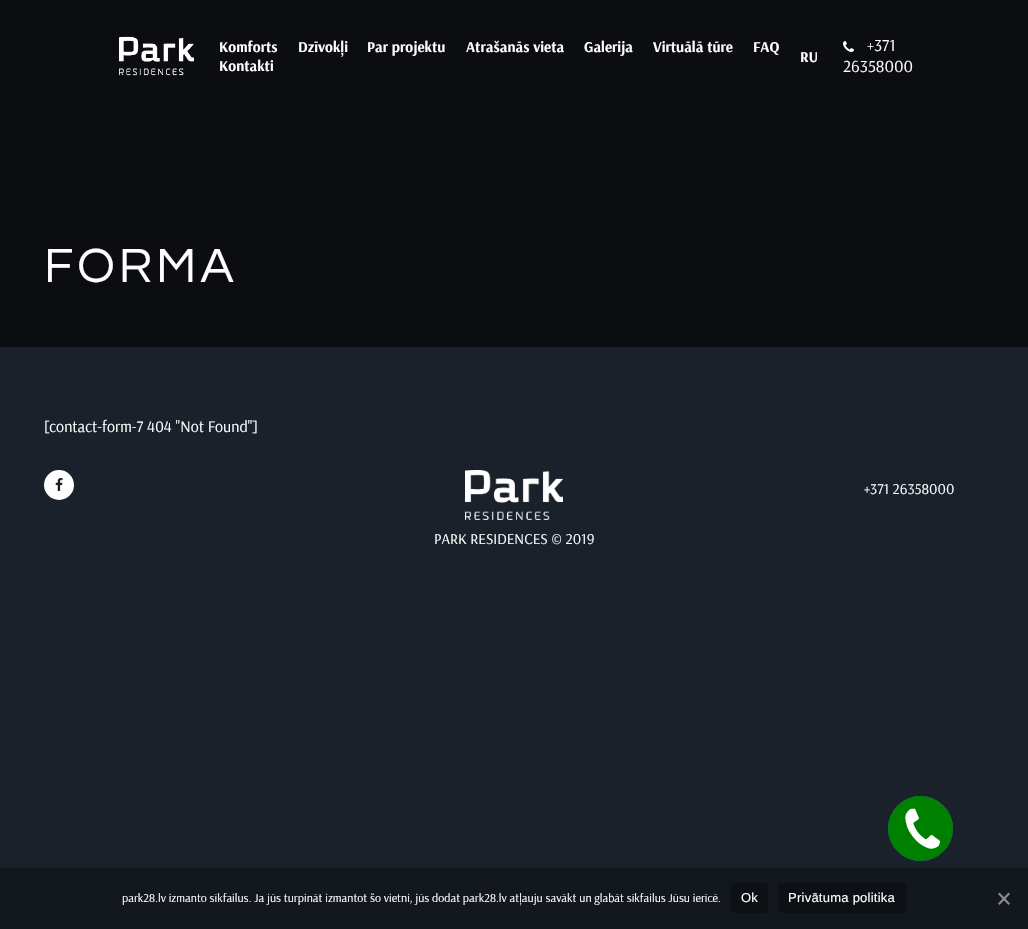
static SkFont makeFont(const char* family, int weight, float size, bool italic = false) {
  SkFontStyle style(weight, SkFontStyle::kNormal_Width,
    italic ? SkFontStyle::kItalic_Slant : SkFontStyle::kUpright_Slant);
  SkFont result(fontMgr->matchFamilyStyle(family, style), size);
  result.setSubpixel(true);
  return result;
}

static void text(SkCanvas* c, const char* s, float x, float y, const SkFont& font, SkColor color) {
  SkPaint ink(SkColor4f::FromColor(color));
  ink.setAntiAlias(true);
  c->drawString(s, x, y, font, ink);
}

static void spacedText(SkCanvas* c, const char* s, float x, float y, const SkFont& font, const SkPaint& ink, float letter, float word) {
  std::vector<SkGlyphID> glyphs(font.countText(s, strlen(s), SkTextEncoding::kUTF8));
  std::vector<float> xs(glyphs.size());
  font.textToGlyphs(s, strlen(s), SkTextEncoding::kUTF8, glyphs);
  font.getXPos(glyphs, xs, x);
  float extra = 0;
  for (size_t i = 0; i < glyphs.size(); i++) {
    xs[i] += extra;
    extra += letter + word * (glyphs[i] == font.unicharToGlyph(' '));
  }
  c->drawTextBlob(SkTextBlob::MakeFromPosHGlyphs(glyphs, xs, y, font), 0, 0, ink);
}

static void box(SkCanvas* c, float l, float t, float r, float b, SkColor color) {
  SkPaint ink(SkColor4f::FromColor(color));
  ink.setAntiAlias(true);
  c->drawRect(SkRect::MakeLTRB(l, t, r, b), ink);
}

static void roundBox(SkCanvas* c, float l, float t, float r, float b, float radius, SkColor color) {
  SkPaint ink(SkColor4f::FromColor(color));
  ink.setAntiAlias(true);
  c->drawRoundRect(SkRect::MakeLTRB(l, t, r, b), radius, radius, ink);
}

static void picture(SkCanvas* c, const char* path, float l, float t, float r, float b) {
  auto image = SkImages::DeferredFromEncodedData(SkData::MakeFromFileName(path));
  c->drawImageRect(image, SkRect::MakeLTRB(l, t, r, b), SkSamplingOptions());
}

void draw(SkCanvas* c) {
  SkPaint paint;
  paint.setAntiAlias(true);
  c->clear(0xff1b212b);
  box(c, 0, 0, 1028, 347, 0xff0b0d11);
  picture(c, "img_01.png", 119, 36, 194, 76);
  SkFont face1 = makeFont("Arsenal", 700, 15);
  text(c, "Komforts", 219, 52, face1, 0xfffffefe);
  text(c, "Dzīvokļi", 298, 52, face1, 0xfffffefe);
  text(c, "Par projektu", 367, 52, face1, 0xfffffefe);
  text(c, "Atrašanās vieta", 466, 52, face1, 0xfffffefe);
  text(c, "Galerija", 584, 52, face1, 0xfffffefe);
  text(c, "Virtuālā tūre", 653, 52, face1, 0xfffffefe);
  text(c, "FAQ", 753, 52, face1, 0xfffffefe);
  text(c, "Kontakti", 219, 71, face1, 0xfffffefe);
  text(c, "RU", 800, 62, face1, 0xfffffefe);
  picture(c, "img_02.png", 843, 41, 854, 52);
  SkFont face2 = makeFont("Arsenal", 400, 17);
  text(c, "+371", 867, 51, face2, 0xfffffefe);
  text(c, "26358000", 843, 72, face2, 0xfffffefe);
  SkFont face3 = makeFont("Questrial", 400, 50);
  paint.setColor(0xfffffefe);
  spacedText(c, "FORMA", 44, 282, face3, paint, 4, 0);
  SkFont face4 = makeFont("Arsenal", 400, 16);
  text(c, "[contact-form-7 404 \"Not Found\"]", 44, 432, face4, 0xfffffefe);
  paint.setColor(0xffffffff);
  c->drawCircle(59, 485, 15, paint);
  picture(c, "img_03.png", 55, 478, 63, 491);
  SkFont face5 = makeFont("Arsenal", 400, 15);
  text(c, "+371 26358000", 864, 494, face5, 0xfffffefe);
  picture(c, "img_04.png", 465, 470, 563, 520);
  text(c, "PARK RESIDENCES © 2019", 434, 544, face5, 0xfffffefe);
  paint.setStyle(SkPaint::kStroke_Style);
  paint.setStrokeWidth(1);
  paint.setColor(0xff1662b4);
  c->drawCircle(920.5f, 828.5f, 32, paint);
  paint.setStyle(SkPaint::kFill_Style);
  paint.setColor(0xff008000);
  c->drawCircle(920.5f, 828.5f, 32.5f, paint);
  picture(c, "img_05.png", 905, 808, 940, 849);
  box(c, 0, 868, 1028, 929, 0xff13171e);
  SkFont face6 = makeFont("Arsenal", 400, 12);
  text(c, "park28.lv izmanto sīkfailus. Ja jūs turpināt izmantot šo vietni, jūs dodat park28.lv atļauju savākt un glabāt sīkfailus Jūsu ierīcē.", 122, 902, face6, 0xfffffefe);
  roundBox(c, 731, 883, 768, 913, 3, 0xff0d1015);
  SkFont face7 = makeFont("Liberation Sans", 400, 13);
  paint.setColor(0xfffffefe);
  spacedText(c, "Ok", 741, 902, face7, paint, 0.25f, 0);
  roundBox(c, 778, 883, 906, 913, 3, 0xff0d1015);
  spacedText(c, "Privātuma politika", 788, 902, face7, paint, 0.25f, 0);
  paint.setColor(0xff898b8f);
  c->drawPath(SkPathBuilder().moveTo(1008.5f, 892.5f).lineTo(1010, 894).lineTo(999.5f, 905).lineTo(998, 903.5f).close().detach(), paint);
  c->drawPath(SkPathBuilder().moveTo(998, 894).lineTo(999.5f, 892.5f).lineTo(1010, 903.5f).lineTo(1008.5f, 905).close().detach(), paint);
}
